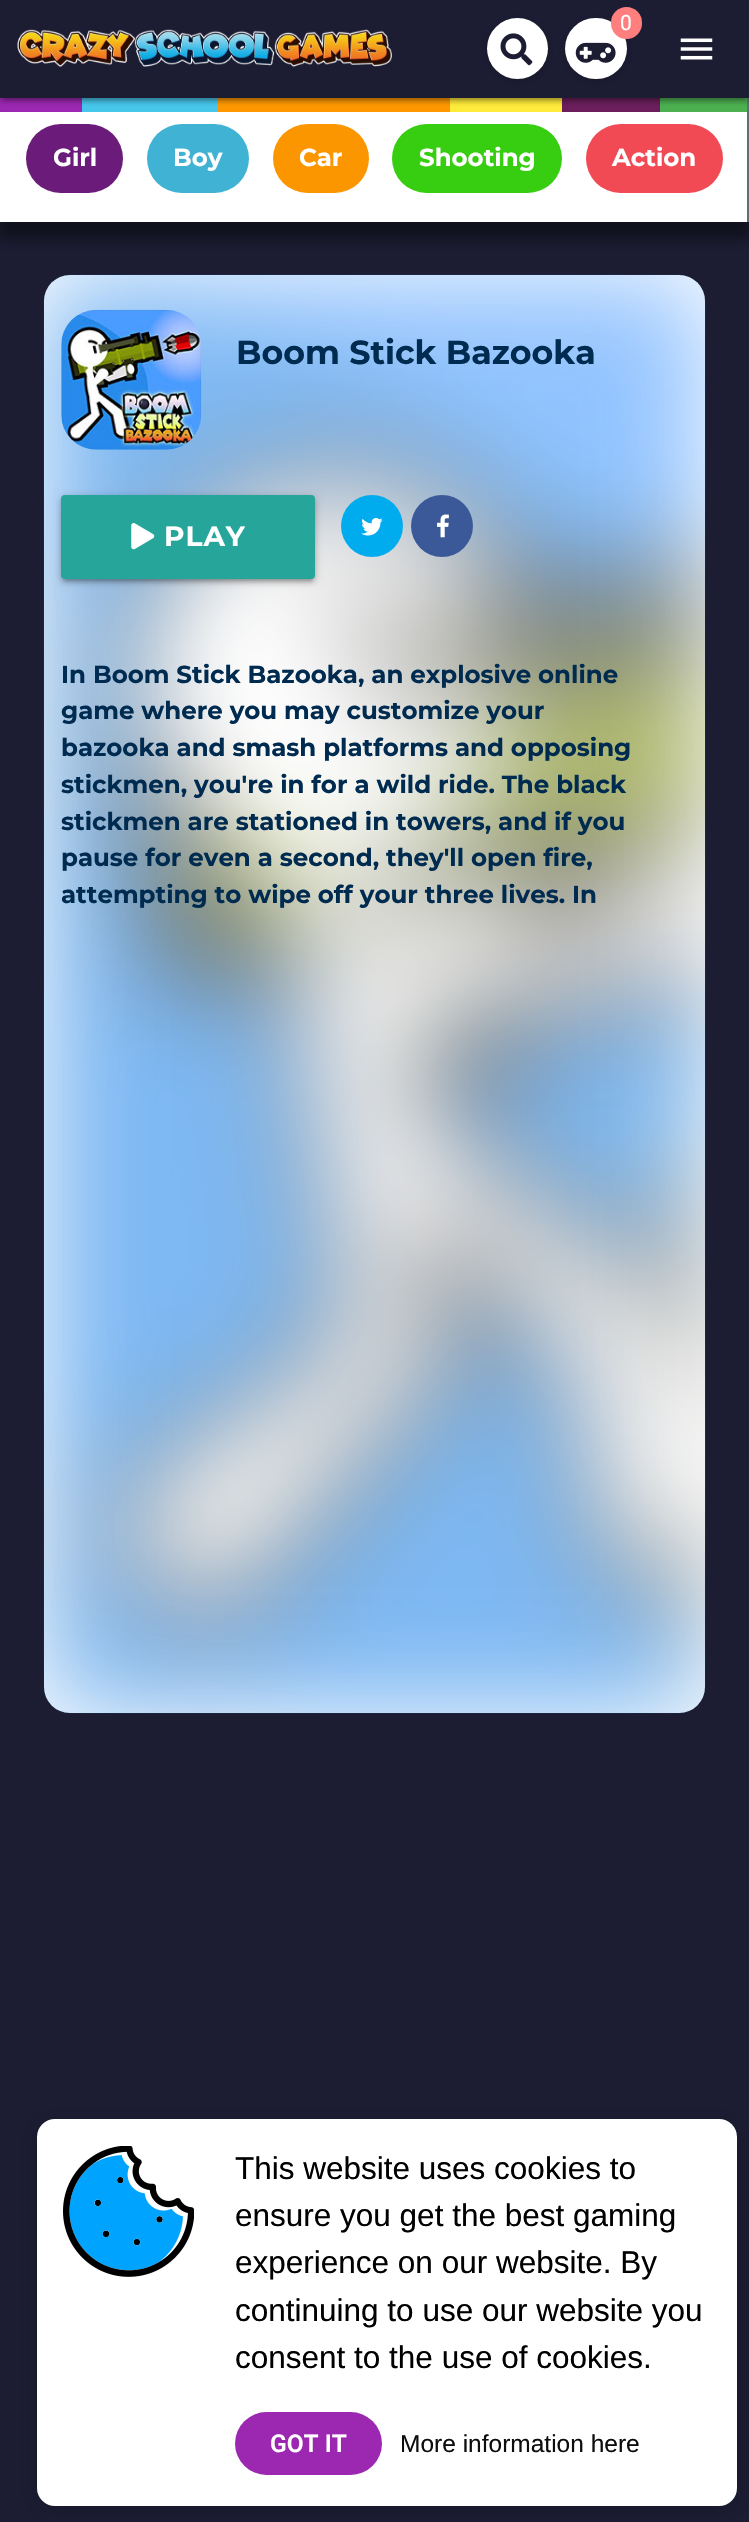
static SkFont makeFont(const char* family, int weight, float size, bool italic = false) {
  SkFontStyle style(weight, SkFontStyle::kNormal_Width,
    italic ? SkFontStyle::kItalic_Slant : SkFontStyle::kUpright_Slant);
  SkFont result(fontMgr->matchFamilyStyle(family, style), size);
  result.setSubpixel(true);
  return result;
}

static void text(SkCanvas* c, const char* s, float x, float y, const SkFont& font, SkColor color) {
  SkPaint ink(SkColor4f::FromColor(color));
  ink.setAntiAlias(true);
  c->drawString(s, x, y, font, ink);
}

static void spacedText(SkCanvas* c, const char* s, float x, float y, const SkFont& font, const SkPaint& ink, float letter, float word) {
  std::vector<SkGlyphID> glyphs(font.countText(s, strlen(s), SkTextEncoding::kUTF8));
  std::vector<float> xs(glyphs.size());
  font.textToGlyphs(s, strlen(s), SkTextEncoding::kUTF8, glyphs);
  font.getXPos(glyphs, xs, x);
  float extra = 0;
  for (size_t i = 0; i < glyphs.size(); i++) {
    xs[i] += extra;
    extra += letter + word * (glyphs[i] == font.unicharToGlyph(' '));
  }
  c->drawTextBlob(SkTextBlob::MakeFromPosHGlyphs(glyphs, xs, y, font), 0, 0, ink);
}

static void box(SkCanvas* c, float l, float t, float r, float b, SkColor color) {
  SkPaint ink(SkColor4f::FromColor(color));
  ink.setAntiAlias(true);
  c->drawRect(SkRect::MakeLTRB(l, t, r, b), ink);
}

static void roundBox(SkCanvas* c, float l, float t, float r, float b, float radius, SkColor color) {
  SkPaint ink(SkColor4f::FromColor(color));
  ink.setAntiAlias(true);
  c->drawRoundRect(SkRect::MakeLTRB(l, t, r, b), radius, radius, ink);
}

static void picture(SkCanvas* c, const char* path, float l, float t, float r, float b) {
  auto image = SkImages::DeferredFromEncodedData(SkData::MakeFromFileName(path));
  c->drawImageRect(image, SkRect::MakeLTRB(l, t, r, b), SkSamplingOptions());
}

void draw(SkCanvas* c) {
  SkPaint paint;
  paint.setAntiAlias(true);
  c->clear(0xff1c1d33);
  paint.setColor(0x69000000);
  paint.setMaskFilter(SkMaskFilter::MakeBlur(kNormal_SkBlurStyle, 6));
  c->drawRect(SkRect::MakeLTRB(-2, 112, 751, 240), paint);
  paint.setMaskFilter(nullptr);
  box(c, 0, 112, 747, 222, 0xffffffff);
  box(c, 0, 98, 82, 112, 0xff9c27b0);
  box(c, 82, 98, 217, 112, 0xff47c6eb);
  box(c, 217, 98, 450, 112, 0xffff9800);
  box(c, 450, 98, 562, 112, 0xffffeb3b);
  box(c, 562, 98, 660, 112, 0xff6b1e5b);
  box(c, 660, 98, 747, 112, 0xff4caf50);
  box(c, 747, 98, 749, 222, 0xff656b71);
  c->save();
  c->clipRect(SkRect::MakeLTRB(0, 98, 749, 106));
  paint.setColor(0x33000000);
  paint.setMaskFilter(SkMaskFilter::MakeBlur(kNormal_SkBlurStyle, 4.5f));
  c->drawRect(SkRect::MakeLTRB(0, 2, 749, 100), paint);
  paint.setMaskFilter(nullptr);
  c->restore();
  c->save();
  c->clipRect(SkRect::MakeLTRB(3, 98, 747, 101));
  paint.setColor(0x1f000000);
  paint.setMaskFilter(SkMaskFilter::MakeBlur(kNormal_SkBlurStyle, 1));
  c->drawRect(SkRect::MakeLTRB(4, 9, 746, 100), paint);
  paint.setMaskFilter(nullptr);
  c->restore();
  c->save();
  c->clipRect(SkRect::MakeLTRB(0, 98, 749, 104));
  paint.setColor(0x24000000);
  paint.setMaskFilter(SkMaskFilter::MakeBlur(kNormal_SkBlurStyle, 2));
  c->drawRect(SkRect::MakeLTRB(0, 4, 749, 102), paint);
  paint.setMaskFilter(nullptr);
  c->restore();
  paint.setColor(0x33000000);
  paint.setMaskFilter(SkMaskFilter::MakeBlur(kNormal_SkBlurStyle, 4.5f));
  c->drawRoundRect(SkRect::MakeLTRB(487, 19, 548, 81), 30.5f, 30.5f, paint);
  paint.setMaskFilter(nullptr);
  paint.setColor(0xffffffff);
  c->drawCircle(517.5f, 48.5f, 30.5f, paint);
  picture(c, "img_01.png", 500, 33, 533, 66);
  paint.setColor(0x33000000);
  paint.setMaskFilter(SkMaskFilter::MakeBlur(kNormal_SkBlurStyle, 4.5f));
  c->drawRoundRect(SkRect::MakeLTRB(565, 19, 627, 81), 31, 31, paint);
  paint.setMaskFilter(nullptr);
  roundBox(c, 565, 18, 627, 79, 30.5f, 0xffffffff);
  roundBox(c, 611, 7, 642, 39, 15.5f, 0xffff7e7e);
  SkFont face1 = makeFont("Roboto", 400, 21);
  paint.setColor(0xffffffff);
  spacedText(c, "0", 620, 30, face1, paint, 1, 0);
  picture(c, "img_02.png", 575, 42, 616, 63);
  picture(c, "img_03.png", 17, 29, 392, 67);
  picture(c, "img_04.png", 680, 38, 713, 60);
  roundBox(c, 26, 124, 123, 193, 34.5f, 0xff6b1b79);
  SkFont face2 = makeFont("Montserrat", 700, 24.5f);
  text(c, "Girl", 53, 166, face2, 0xffffffff);
  roundBox(c, 147, 124, 249, 193, 34.5f, 0xff40b3d4);
  text(c, "Boy", 173, 166, face2, 0xffffffff);
  roundBox(c, 273, 124, 369, 193, 34.5f, 0xfffb9600);
  text(c, "Car", 299, 166, face2, 0xffffffff);
  roundBox(c, 392, 124, 562, 193, 34.5f, 0xff37ce11);
  text(c, "Shooting", 419, 166, face2, 0xffffffff);
  roundBox(c, 586, 124, 723, 193, 34.5f, 0xfff14a54);
  text(c, "Action", 612, 166, face2, 0xffffffff);
  roundBox(c, 44, 275, 705, 1713, 26, 0xffffffff);
  picture(c, "img_05.png", 43, 274, 706, 1714);
  picture(c, "img_06.png", 61, 309, 202, 450);
  SkFont face3 = makeFont("Montserrat", 700, 33.25f);
  text(c, "Boom Stick Bazooka", 236, 364, face3, 0xff002b50);
  paint.setColor(0x33000000);
  paint.setMaskFilter(SkMaskFilter::MakeBlur(kNormal_SkBlurStyle, 4.5f));
  c->drawRoundRect(SkRect::MakeLTRB(61, 497, 315, 581), 4, 4, paint);
  paint.setMaskFilter(nullptr);
  paint.setColor(0x1f000000);
  paint.setMaskFilter(SkMaskFilter::MakeBlur(kNormal_SkBlurStyle, 1));
  c->drawRect(SkRect::MakeLTRB(65, 504, 312, 581), paint);
  paint.setMaskFilter(nullptr);
  paint.setColor(0x24000000);
  paint.setMaskFilter(SkMaskFilter::MakeBlur(kNormal_SkBlurStyle, 2));
  c->drawRoundRect(SkRect::MakeLTRB(61, 499, 315, 583), 4, 4, paint);
  paint.setMaskFilter(nullptr);
  roundBox(c, 61, 495, 315, 579, 4, 0xff26a69a);
  picture(c, "img_07.png", 131, 523, 155, 550);
  SkFont face4 = makeFont("Montserrat", 700, 28);
  paint.setColor(0xffffffff);
  spacedText(c, "PLAY", 164, 546, face4, paint, 1, 0);
  paint.setColor(0xff00aced);
  c->drawCircle(372, 526, 31, paint);
  picture(c, "img_08.png", 361, 518, 383, 536);
  paint.setColor(0xff3b5998);
  c->drawCircle(442, 526, 31, paint);
  picture(c, "img_09.png", 437, 514, 449, 538);
  text(c, "In Boom Stick Bazooka, an explosive online", 61, 683, face2, 0xff002b50);
  text(c, "game where you may customize your", 61, 719, face2, 0xff002b50);
  text(c, "bazooka and smash platforms and opposing", 61, 756, face2, 0xff002b50);
  text(c, "stickmen, you're in for a wild ride. The black", 61, 793, face2, 0xff002b50);
  text(c, "stickmen are stationed in towers, and if you", 61, 830, face2, 0xff002b50);
  text(c, "pause for even a second, they'll open fire,", 61, 866, face2, 0xff002b50);
  text(c, "attempting to wipe off your three lives. In", 61, 903, face2, 0xff002b50);
  paint.setColor(0x33000000);
  paint.setMaskFilter(SkMaskFilter::MakeBlur(kNormal_SkBlurStyle, 13));
  c->drawRoundRect(SkRect::MakeLTRB(37, 2123, 737, 2510), 18, 18, paint);
  paint.setMaskFilter(nullptr);
  roundBox(c, 37, 2119, 737, 2506, 18, 0xffffffff);
  picture(c, "img_10.png", 63, 2146, 194, 2277);
  SkFont face5 = makeFont("Liberation Sans", 400, 31.5f);
  text(c, "This website uses cookies to", 235, 2179, face5, 0xff000000);
  text(c, "ensure you get the best gaming", 235, 2226, face5, 0xff000000);
  text(c, "experience on our website. By", 235, 2273, face5, 0xff000000);
  text(c, "continuing to use our website you", 235, 2321, face5, 0xff000000);
  text(c, "consent to the use of cookies.", 235, 2368, face5, 0xff000000);
  roundBox(c, 235, 2412, 382, 2475, 31.5f, 0xff9c27b0);
  SkFont face6 = makeFont("Roboto", 600, 24.5f);
  text(c, "GOT IT", 270, 2452, face6, 0xffffffff);
  SkFont face7 = makeFont("Liberation Sans", 400, 24.5f);
  text(c, "More information here", 400, 2452, face7, 0xff0d0d0d);
}
